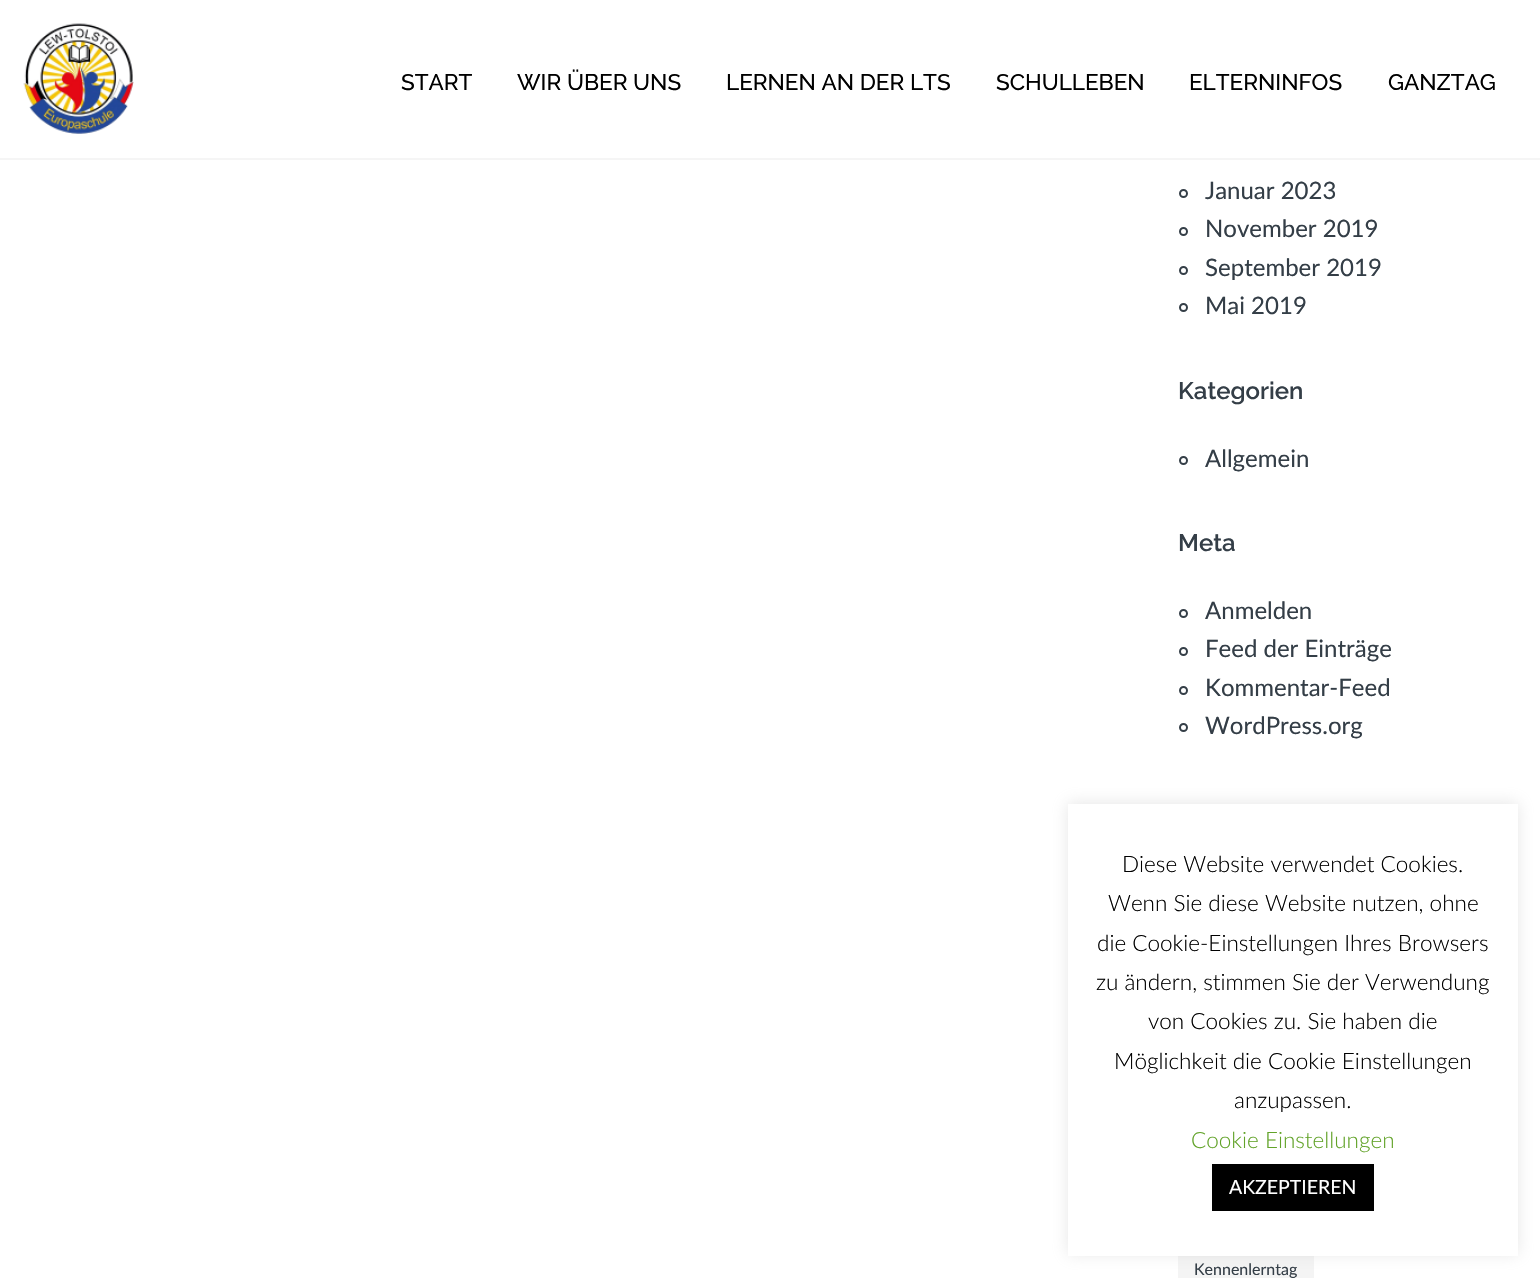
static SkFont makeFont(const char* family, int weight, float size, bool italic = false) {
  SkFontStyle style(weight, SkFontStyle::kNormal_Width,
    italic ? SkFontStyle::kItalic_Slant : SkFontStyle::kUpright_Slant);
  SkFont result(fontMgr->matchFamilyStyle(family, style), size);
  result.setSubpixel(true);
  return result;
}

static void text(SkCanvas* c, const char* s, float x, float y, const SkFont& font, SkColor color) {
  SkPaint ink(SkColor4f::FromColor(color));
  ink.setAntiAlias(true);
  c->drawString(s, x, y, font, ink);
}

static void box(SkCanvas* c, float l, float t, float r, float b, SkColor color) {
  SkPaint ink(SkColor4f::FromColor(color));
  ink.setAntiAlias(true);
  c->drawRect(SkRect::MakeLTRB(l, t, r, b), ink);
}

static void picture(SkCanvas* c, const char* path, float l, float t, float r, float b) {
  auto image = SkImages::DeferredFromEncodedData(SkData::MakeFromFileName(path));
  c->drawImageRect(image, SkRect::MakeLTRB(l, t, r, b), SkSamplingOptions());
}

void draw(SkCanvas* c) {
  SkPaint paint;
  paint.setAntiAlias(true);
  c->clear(0xffffffff);
  box(c, 0, 158, 1540, 160, 0xfff5f5f5);
  picture(c, "img_01.png", 23, 23, 134, 134);
  SkFont face1 = makeFont("Raleway", 500, 22.5f);
  text(c, "START", 401, 90, face1, 0xff000000);
  text(c, "WIR ÜBER UNS", 517, 90, face1, 0xff000000);
  text(c, "LERNEN AN DER LTS", 726, 90, face1, 0xff000000);
  text(c, "SCHULLEBEN", 996, 90, face1, 0xff000000);
  text(c, "ELTERNINFOS", 1189, 90, face1, 0xff000000);
  text(c, "GANZTAG", 1388, 90, face1, 0xff000000);
  paint.setStyle(SkPaint::kStroke_Style);
  paint.setStrokeWidth(2);
  paint.setColor(0xff343e47);
  c->drawCircle(1183.5f, 193.5f, 3.5f, paint);
  SkFont face2 = makeFont("Lato", 400, 24);
  text(c, "Januar 2023", 1205, 199, face2, 0xff343e47);
  c->drawCircle(1183.5f, 231.5f, 3.5f, paint);
  text(c, "November 2019", 1205, 237, face2, 0xff343e47);
  c->drawCircle(1183.5f, 270.5f, 3.5f, paint);
  text(c, "September 2019", 1205, 276, face2, 0xff343e47);
  c->drawCircle(1183.5f, 307.5f, 3.5f, paint);
  text(c, "Mai 2019", 1205, 314, face2, 0xff343e47);
  SkFont face3 = makeFont("Raleway", 600, 24);
  text(c, "Kategorien", 1178, 399, face3, 0xff343e47);
  c->drawCircle(1183.5f, 460.5f, 3.5f, paint);
  text(c, "Allgemein", 1205, 467, face2, 0xff343e47);
  text(c, "Meta", 1178, 551, face3, 0xff343e47);
  c->drawCircle(1183.5f, 613.5f, 3.5f, paint);
  text(c, "Anmelden", 1205, 619, face2, 0xff343e47);
  c->drawCircle(1183.5f, 651.5f, 3.5f, paint);
  text(c, "Feed der Einträge", 1205, 657, face2, 0xff343e47);
  c->drawCircle(1183.5f, 690.5f, 3.5f, paint);
  text(c, "Kommentar-Feed", 1205, 696, face2, 0xff343e47);
  c->drawCircle(1183.5f, 727.5f, 3.5f, paint);
  text(c, "WordPress.org", 1205, 734, face2, 0xff343e47);
  box(c, 1178, 1256, 1314, 1278, 0xfff4f4f4);
  SkFont face4 = makeFont("Lato", 400, 16);
  text(c, "Kennenlerntag", 1194, 1275, face4, 0xff343e47);
  paint.setStyle(SkPaint::kFill_Style);
  paint.setColor(0x4dacabab);
  paint.setMaskFilter(SkMaskFilter::MakeBlur(kNormal_SkBlurStyle, 7.5f));
  c->drawRect(SkRect::MakeLTRB(1068, 803, 1518, 1254), paint);
  paint.setMaskFilter(nullptr);
  box(c, 1068, 804, 1518, 1256, 0xffffffff);
  SkFont face5 = makeFont("Lato", 300, 22.5f);
  text(c, "Diese Website verwendet Cookies.", 1122, 872, face5, 0xff000000);
  text(c, "Wenn Sie diese Website nutzen, ohne", 1108, 911, face5, 0xff000000);
  text(c, "die Cookie-Einstellungen Ihres Browsers", 1097, 951, face5, 0xff000000);
  text(c, "zu ändern, stimmen Sie der Verwendung", 1096, 990, face5, 0xff000000);
  text(c, "von Cookies zu. Sie haben die", 1148, 1029, face5, 0xff000000);
  text(c, "Möglichkeit die Cookie Einstellungen", 1114, 1069, face5, 0xff000000);
  text(c, "anzupassen.", 1234, 1108, face5, 0xff000000);
  text(c, "Cookie Einstellungen", 1191, 1148, face5, 0xff62a329);
  box(c, 1212, 1164, 1374, 1211, 0xff000000);
  SkFont face6 = makeFont("Lato", 400, 19.5f);
  text(c, "AKZEPTIEREN", 1229, 1194, face6, 0xffffffff);
}
